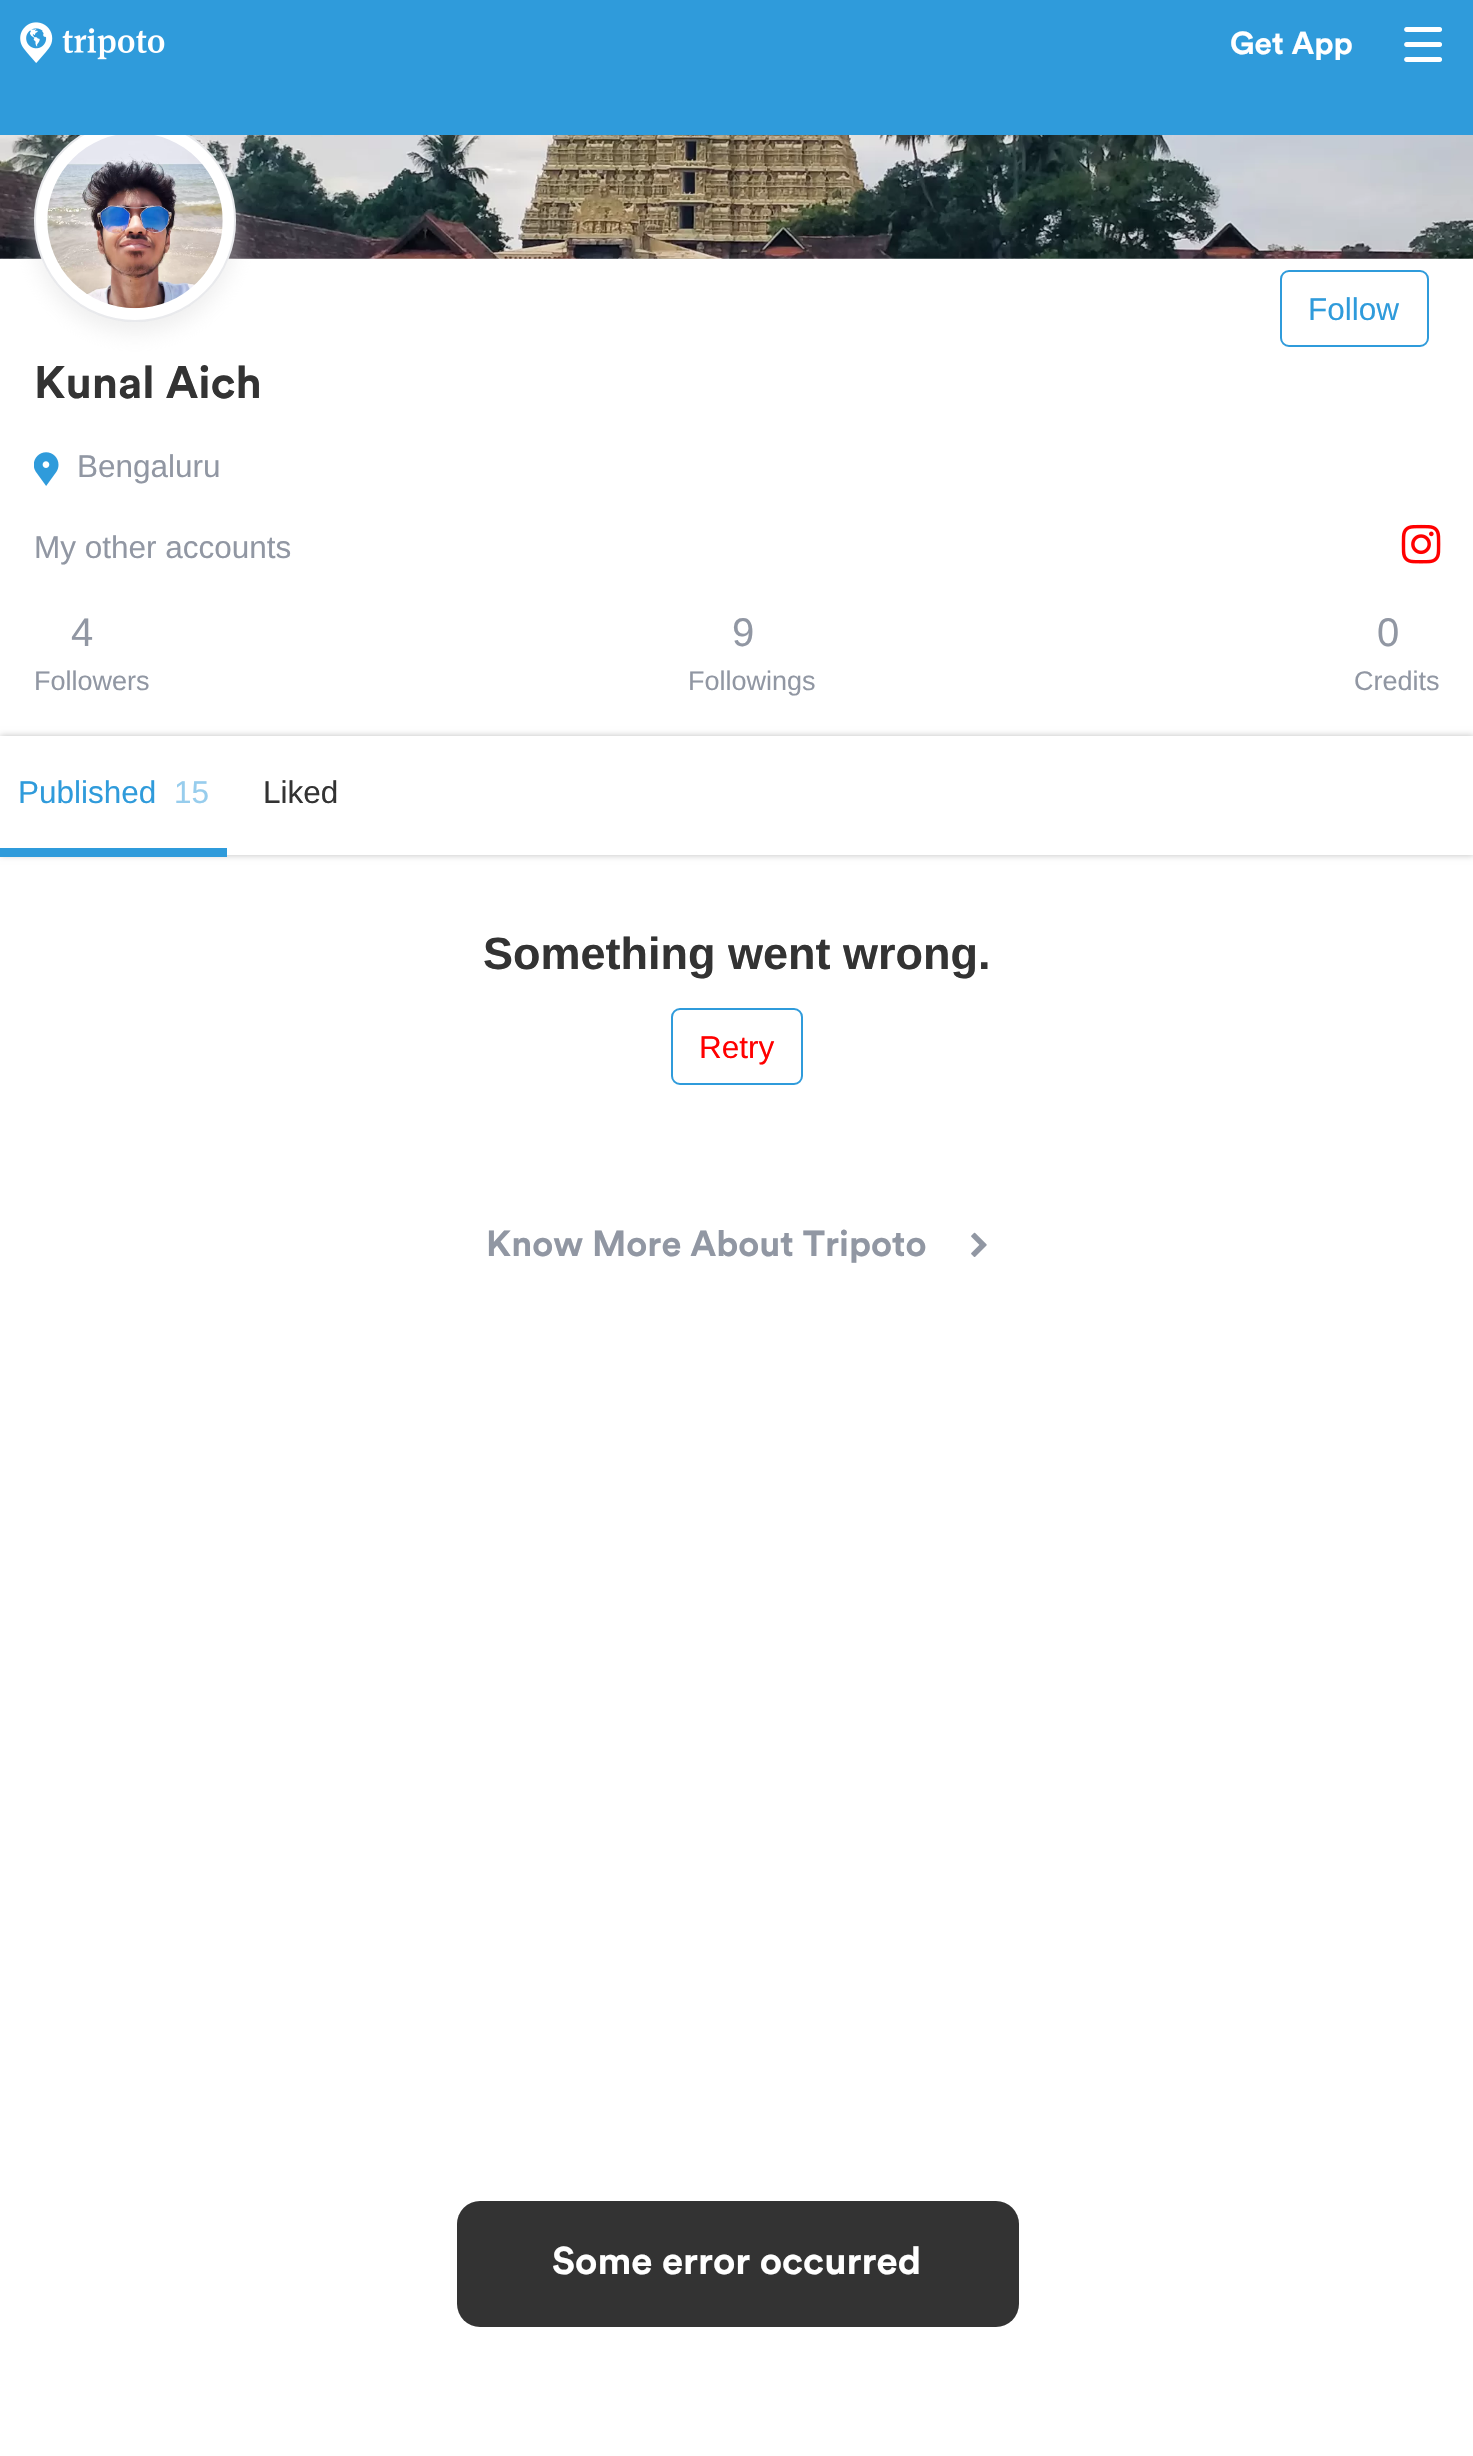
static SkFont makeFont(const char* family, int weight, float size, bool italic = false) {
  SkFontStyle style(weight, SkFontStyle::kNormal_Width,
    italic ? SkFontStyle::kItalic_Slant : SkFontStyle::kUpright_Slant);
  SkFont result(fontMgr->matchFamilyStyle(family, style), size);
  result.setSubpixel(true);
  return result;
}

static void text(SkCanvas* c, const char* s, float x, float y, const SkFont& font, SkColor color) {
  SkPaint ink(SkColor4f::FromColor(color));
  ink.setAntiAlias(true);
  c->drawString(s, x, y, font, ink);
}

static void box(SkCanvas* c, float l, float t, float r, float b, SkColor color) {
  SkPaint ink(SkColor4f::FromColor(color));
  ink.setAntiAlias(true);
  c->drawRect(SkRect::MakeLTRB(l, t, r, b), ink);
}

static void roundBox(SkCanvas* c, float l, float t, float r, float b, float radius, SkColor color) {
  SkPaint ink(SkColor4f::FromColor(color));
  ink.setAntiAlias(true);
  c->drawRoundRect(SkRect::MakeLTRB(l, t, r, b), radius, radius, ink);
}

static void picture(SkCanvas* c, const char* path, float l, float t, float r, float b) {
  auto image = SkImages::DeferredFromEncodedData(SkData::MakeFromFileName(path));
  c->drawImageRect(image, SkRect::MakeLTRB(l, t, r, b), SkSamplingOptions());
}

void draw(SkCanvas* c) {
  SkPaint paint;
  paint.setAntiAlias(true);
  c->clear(0xffffffff);
  picture(c, "img_03.png", 0, 135, 1473, 259);
  paint.setColor(0x80dddddd);
  paint.setMaskFilter(SkMaskFilter::MakeBlur(kNormal_SkBlurStyle, 11));
  c->drawRoundRect(SkRect::MakeLTRB(34, 131, 236, 333), 101, 101, paint);
  paint.setMaskFilter(nullptr);
  roundBox(c, 34, 119, 236, 322, 101, 0xffffffff);
  paint.setStyle(SkPaint::kStroke_Style);
  paint.setStrokeWidth(2);
  paint.setColor(0x339197a3);
  c->drawRoundRect(SkRect::MakeLTRB(35, 120, 235, 321), 100, 100, paint);
  box(c, 0, 0, 1473, 135, 0xff2f9bdb);
  picture(c, "img_01.png", 20, 22, 165, 63);
  SkFont face1 = makeFont("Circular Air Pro", 700, 31.5f);
  text(c, "Get App", 1230, 54, face1, 0xffffffff);
  picture(c, "img_02.png", 1404, 27, 1442, 62);
  picture(c, "img_04.png", 47, 135, 223, 309);
  paint.setColor(0xff2f9bdb);
  c->drawRoundRect(SkRect::MakeLTRB(1281, 271, 1428, 346), 8, 8, paint);
  SkFont face2 = makeFont("Liberation Sans", 400, 31.5f);
  text(c, "Follow", 1308, 320, face2, 0xff2f9bdb);
  SkFont face3 = makeFont("Circular Air Pro", 700, 45);
  text(c, "Kunal Aich", 34, 398, face3, 0xff333333);
  picture(c, "img_05.png", 34, 452, 59, 486);
  text(c, "Bengaluru", 77, 477, face2, 0xff9197a3);
  text(c, "My other accounts", 34, 558, face2, 0xff9197a3);
  picture(c, "img_06.png", 1401, 524, 1441, 564);
  SkFont face4 = makeFont("Liberation Sans", 400, 40);
  text(c, "4", 71, 646, face4, 0xff9197a3);
  SkFont face5 = makeFont("Liberation Sans", 400, 27);
  text(c, "Followers", 34, 690, face5, 0xff9197a3);
  text(c, "9", 732, 646, face4, 0xff9197a3);
  text(c, "Followings", 688, 690, face5, 0xff9197a3);
  text(c, "0", 1377, 646, face4, 0xff9197a3);
  text(c, "Credits", 1354, 690, face5, 0xff9197a3);
  c->save();
  c->clipPath(SkPathBuilder(SkPathFillType::kEvenOdd).moveTo(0, 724).lineTo(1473, 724).lineTo(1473, 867).lineTo(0, 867).close().moveTo(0, 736).lineTo(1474, 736).lineTo(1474, 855).lineTo(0, 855).close().detach(), true);
  paint.setStyle(SkPaint::kFill_Style);
  paint.setColor(0x40000000);
  paint.setMaskFilter(SkMaskFilter::MakeBlur(kNormal_SkBlurStyle, 3.5f));
  c->drawRect(SkRect::MakeLTRB(0, 736, 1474, 855), paint);
  paint.setMaskFilter(nullptr);
  c->restore();
  box(c, 0, 848, 227, 857, 0xff2f9bdb);
  text(c, "Published", 18, 803, face2, 0xff2f9bdb);
  text(c, "15", 174, 803, face2, 0xff97cded);
  text(c, "Liked", 263, 803, face2, 0xff333333);
  SkFont face6 = makeFont("Liberation Sans", 700, 45);
  text(c, "Something went wrong.", 483, 969, face6, 0xff333333);
  paint.setStyle(SkPaint::kStroke_Style);
  paint.setColor(0xff2f9bdb);
  c->drawRoundRect(SkRect::MakeLTRB(672, 1009, 802, 1084), 8, 8, paint);
  text(c, "Retry", 699, 1058, face2, 0xffff0000);
  SkFont face7 = makeFont("Circular Air Pro", 700, 36);
  text(c, "Know More About Tripoto", 486, 1256, face7, 0xff9197a3);
  picture(c, "img_07.png", 971, 1232, 987, 1257);
  roundBox(c, 457, 2201, 1019, 2327, 23, 0xff333333);
  SkFont face8 = makeFont("Circular Air Pro", 700, 38.25f);
  text(c, "Some error occurred", 552, 2274, face8, 0xffffffff);
}
